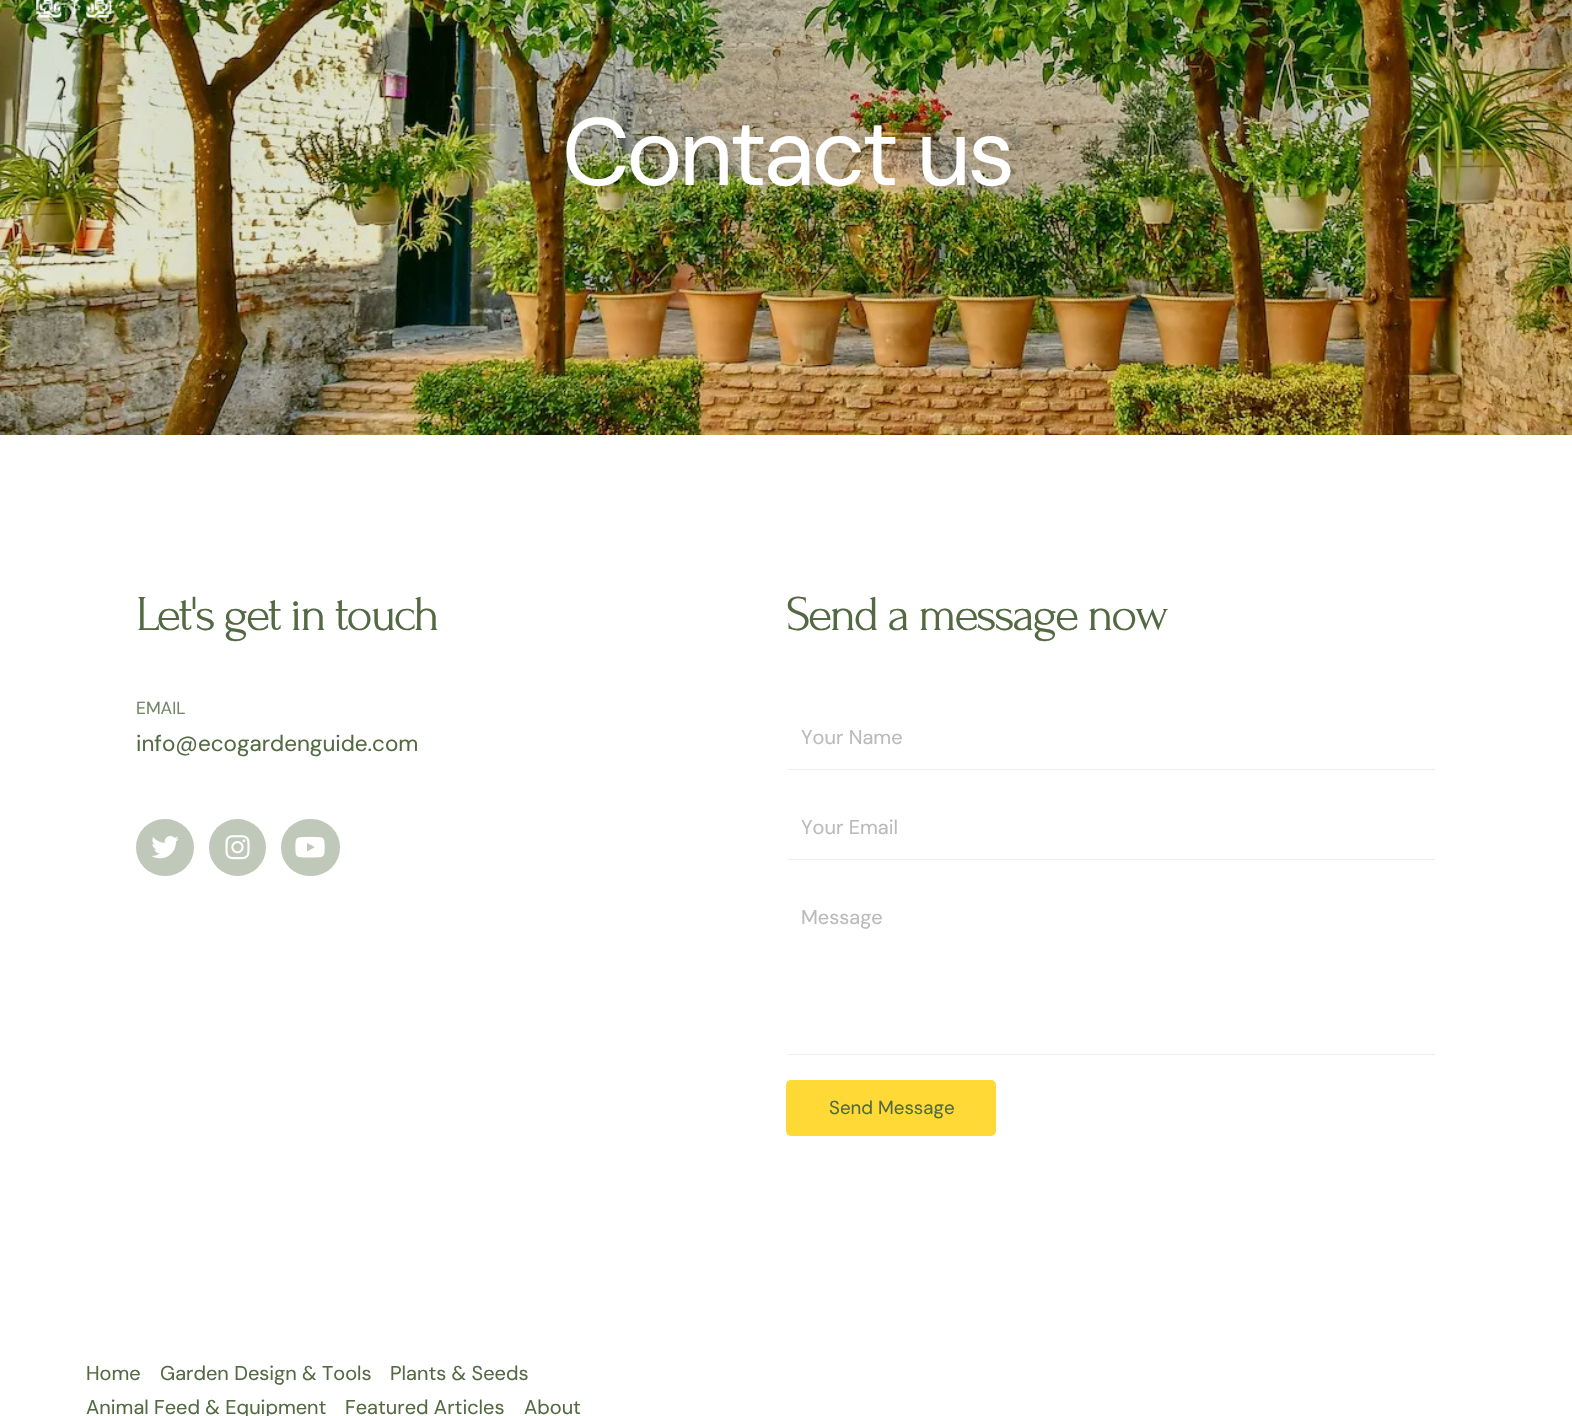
static SkFont makeFont(const char* family, int weight, float size, bool italic = false) {
  SkFontStyle style(weight, SkFontStyle::kNormal_Width,
    italic ? SkFontStyle::kItalic_Slant : SkFontStyle::kUpright_Slant);
  SkFont result(fontMgr->matchFamilyStyle(family, style), size);
  result.setSubpixel(true);
  return result;
}

static void text(SkCanvas* c, const char* s, float x, float y, const SkFont& font, SkColor color) {
  SkPaint ink(SkColor4f::FromColor(color));
  ink.setAntiAlias(true);
  c->drawString(s, x, y, font, ink);
}

static void spacedText(SkCanvas* c, const char* s, float x, float y, const SkFont& font, const SkPaint& ink, float letter, float word) {
  std::vector<SkGlyphID> glyphs(font.countText(s, strlen(s), SkTextEncoding::kUTF8));
  std::vector<float> xs(glyphs.size());
  font.textToGlyphs(s, strlen(s), SkTextEncoding::kUTF8, glyphs);
  font.getXPos(glyphs, xs, x);
  float extra = 0;
  for (size_t i = 0; i < glyphs.size(); i++) {
    xs[i] += extra;
    extra += letter + word * (glyphs[i] == font.unicharToGlyph(' '));
  }
  c->drawTextBlob(SkTextBlob::MakeFromPosHGlyphs(glyphs, xs, y, font), 0, 0, ink);
}

static void box(SkCanvas* c, float l, float t, float r, float b, SkColor color) {
  SkPaint ink(SkColor4f::FromColor(color));
  ink.setAntiAlias(true);
  c->drawRect(SkRect::MakeLTRB(l, t, r, b), ink);
}

static void roundBox(SkCanvas* c, float l, float t, float r, float b, float radius, SkColor color) {
  SkPaint ink(SkColor4f::FromColor(color));
  ink.setAntiAlias(true);
  c->drawRoundRect(SkRect::MakeLTRB(l, t, r, b), radius, radius, ink);
}

static void picture(SkCanvas* c, const char* path, float l, float t, float r, float b) {
  auto image = SkImages::DeferredFromEncodedData(SkData::MakeFromFileName(path));
  c->drawImageRect(image, SkRect::MakeLTRB(l, t, r, b), SkSamplingOptions());
}

void draw(SkCanvas* c) {
  SkPaint paint;
  paint.setAntiAlias(true);
  c->clear(0xffffffff);
  picture(c, "img_02.png", 0, 0, 1572, 435);
  picture(c, "img_01.png", 36, 0, 112, 18);
  SkFont face1 = makeFont("DM Sans", 400, 95);
  paint.setColor(0xffffffff);
  spacedText(c, "Contact us", 562, 185, face1, paint, -3.75f, 0);
  SkFont face2 = makeFont("Forum", 400, 50);
  paint.setColor(0xff536942);
  spacedText(c, "Let's get in touch", 136, 630, face2, paint, -2.5f, 0);
  SkFont face3 = makeFont("DM Sans", 400, 17.5f);
  text(c, "EMAIL", 136, 714, face3, 0xff758666);
  SkFont face4 = makeFont("DM Sans", 400, 22.5f);
  text(c, "info@ecogardenguide.com", 136, 751, face4, 0xff536942);
  roundBox(c, 136, 819, 194, 876, 28.5f, 0xffbfc8b9);
  picture(c, "img_03.png", 151, 836, 179, 859);
  paint.setColor(0xffbfc8b9);
  c->drawCircle(237.5f, 847.5f, 28.5f, paint);
  picture(c, "img_04.png", 225, 835, 250, 860);
  roundBox(c, 281, 819, 340, 876, 28.5f, 0xffbfc8b9);
  picture(c, "img_05.png", 295, 836, 325, 858);
  paint.setColor(0xff536942);
  spacedText(c, "Send a message now", 786, 630, face2, paint, -2.5f, 0);
  box(c, 788, 769, 1435, 770, 0xffeeeeee);
  SkFont face5 = makeFont("DM Sans", 400, 20);
  text(c, "Your Name", 801, 744, face5, 0xffbababa);
  box(c, 788, 859, 1435, 860, 0xffeeeeee);
  text(c, "Your Email", 801, 834, face5, 0xffbababa);
  box(c, 788, 1054, 1435, 1055, 0xffeeeeee);
  text(c, "Message", 801, 924, face5, 0xffbababa);
  roundBox(c, 786, 1080, 996, 1136, 5, 0xffffd936);
  SkFont face6 = makeFont("DM Sans", 400, 18.75f);
  text(c, "Send Message", 829, 1114, face6, 0xff536942);
  text(c, "Home", 86, 1380, face5, 0xff536942);
  text(c, "Garden Design & Tools", 160, 1380, face5, 0xff536942);
  text(c, "Plants & Seeds", 390, 1380, face5, 0xff536942);
  text(c, "Animal Feed & Equipment", 86, 1414, face5, 0xff536942);
  text(c, "Featured Articles", 345, 1414, face5, 0xff536942);
  text(c, "About", 524, 1414, face5, 0xff536942);
}
